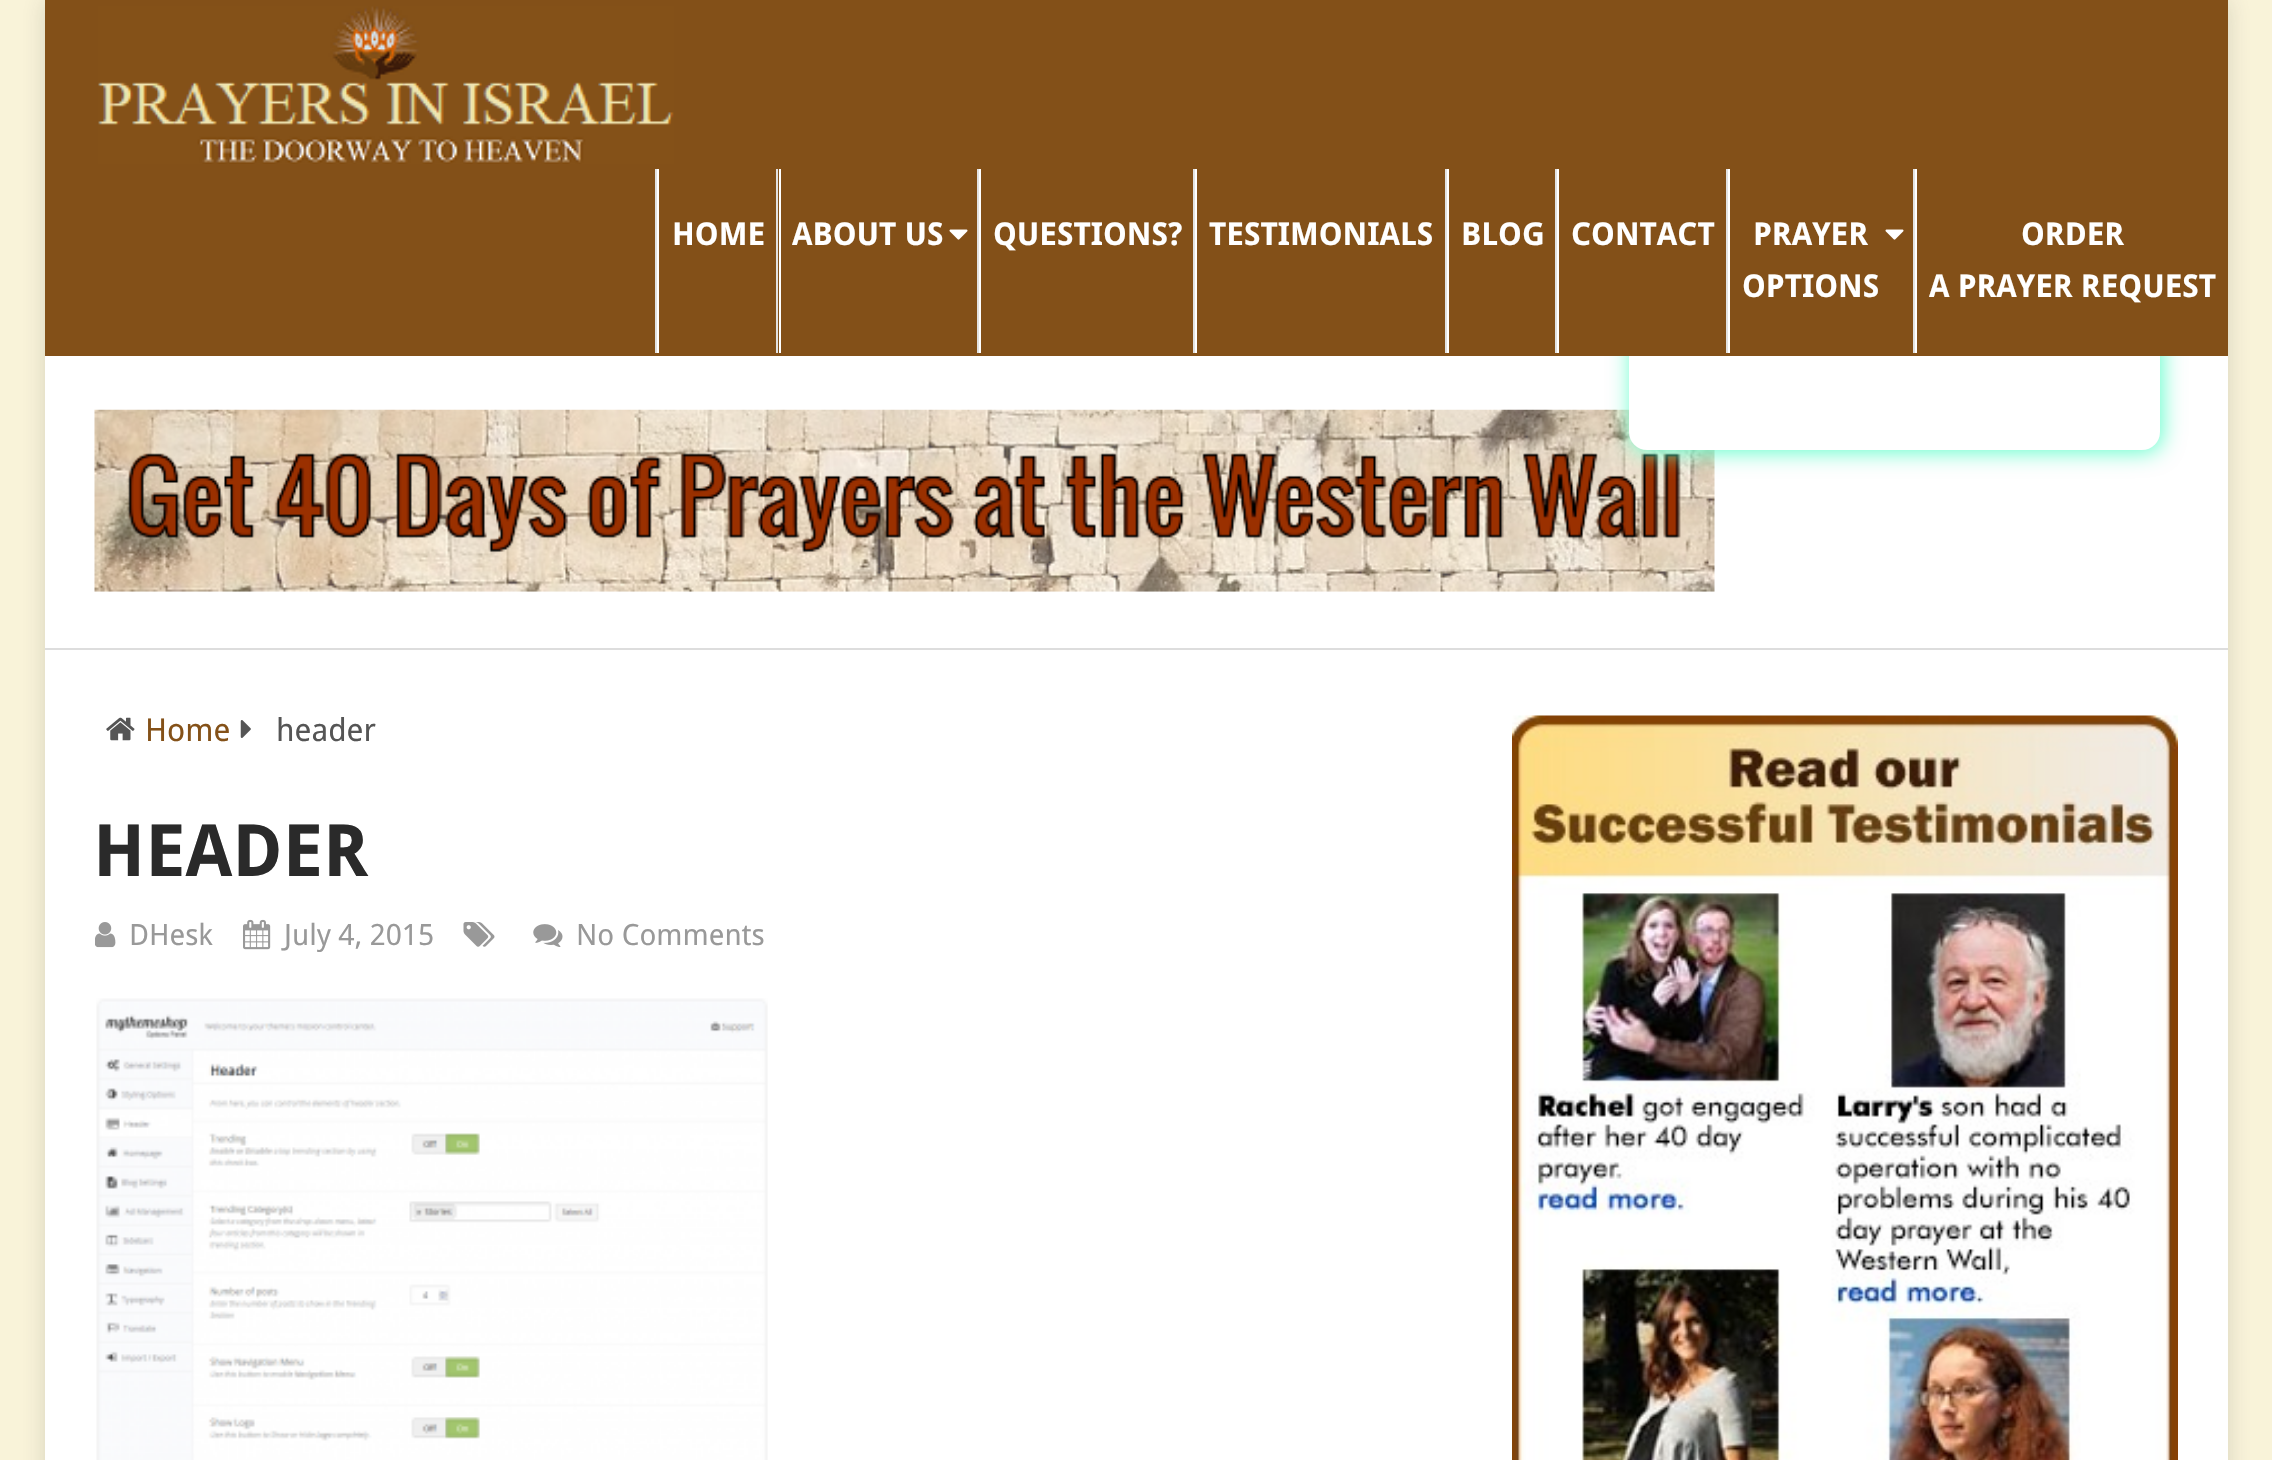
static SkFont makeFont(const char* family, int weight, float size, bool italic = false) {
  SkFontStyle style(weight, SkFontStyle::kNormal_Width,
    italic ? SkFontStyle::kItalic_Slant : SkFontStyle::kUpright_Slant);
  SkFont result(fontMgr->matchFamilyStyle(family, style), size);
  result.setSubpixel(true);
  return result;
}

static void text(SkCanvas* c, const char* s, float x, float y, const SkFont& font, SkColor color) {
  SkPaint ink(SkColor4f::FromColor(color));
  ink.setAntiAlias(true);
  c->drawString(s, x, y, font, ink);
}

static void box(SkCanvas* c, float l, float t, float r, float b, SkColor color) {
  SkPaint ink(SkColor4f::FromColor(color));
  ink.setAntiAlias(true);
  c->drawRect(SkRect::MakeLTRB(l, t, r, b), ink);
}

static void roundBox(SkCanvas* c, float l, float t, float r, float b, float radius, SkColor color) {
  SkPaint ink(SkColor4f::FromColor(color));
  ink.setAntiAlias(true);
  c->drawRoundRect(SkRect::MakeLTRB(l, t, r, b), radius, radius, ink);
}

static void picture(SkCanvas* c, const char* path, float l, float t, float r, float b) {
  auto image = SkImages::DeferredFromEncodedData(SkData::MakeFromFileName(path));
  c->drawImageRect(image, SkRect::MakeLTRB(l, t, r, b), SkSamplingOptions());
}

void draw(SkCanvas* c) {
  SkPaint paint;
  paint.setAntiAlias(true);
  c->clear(0xfff9f3d9);
  paint.setColor(0x2b323232);
  paint.setMaskFilter(SkMaskFilter::MakeBlur(kNormal_SkBlurStyle, 11));
  c->drawRect(SkRect::MakeLTRB(45, 0, 2228, 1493), paint);
  paint.setMaskFilter(nullptr);
  box(c, 45, 356, 2228, 1460, 0xffffffff);
  picture(c, "img_03.png", 94, 409, 1715, 592);
  paint.setColor(0xff5dfeca);
  paint.setMaskFilter(SkMaskFilter::MakeBlur(kNormal_SkBlurStyle, 11));
  c->drawRoundRect(SkRect::MakeLTRB(1631, 115, 2162, 452), 18, 18, paint);
  paint.setMaskFilter(nullptr);
  roundBox(c, 1629, 113, 2160, 450, 18, 0xffffffff);
  box(c, 45, 0, 2228, 356, 0xff835018);
  picture(c, "img_01.png", 98, 6, 674, 164);
  box(c, 655, 169, 657, 353, 0xffe2e2e2);
  box(c, 776, 169, 778, 353, 0xffe2e2e2);
  box(c, 657, 169, 659, 353, 0xffffffff);
  SkFont face1 = makeFont("Droid Sans", 700, 31.5f);
  text(c, "HOME", 672, 245, face1, 0xffffffff);
  box(c, 977, 169, 979, 353, 0xffe2e2e2);
  box(c, 779, 169, 781, 353, 0xffffffff);
  text(c, "ABOUT US", 792, 245, face1, 0xffffffff);
  picture(c, "img_02.png", 949, 229, 968, 240);
  box(c, 1193, 169, 1195, 353, 0xffe2e2e2);
  box(c, 979, 169, 981, 353, 0xffffffff);
  text(c, "QUESTIONS?", 993, 245, face1, 0xffffffff);
  box(c, 1445, 169, 1447, 353, 0xffe2e2e2);
  box(c, 1195, 169, 1197, 353, 0xffffffff);
  text(c, "TESTIMONIALS", 1209, 245, face1, 0xffffffff);
  box(c, 1555, 169, 1557, 353, 0xffe2e2e2);
  box(c, 1447, 169, 1449, 353, 0xffffffff);
  text(c, "BLOG", 1461, 245, face1, 0xffffffff);
  box(c, 1726, 169, 1728, 353, 0xffe2e2e2);
  box(c, 1557, 169, 1559, 353, 0xffffffff);
  text(c, "CONTACT", 1571, 245, face1, 0xffffffff);
  box(c, 1913, 169, 1915, 353, 0xffe2e2e2);
  box(c, 1728, 169, 1730, 353, 0xffffffff);
  text(c, "PRAYER", 1753, 245, face1, 0xffffffff);
  picture(c, "img_02.png", 1885, 229, 1904, 240);
  text(c, "OPTIONS", 1742, 297, face1, 0xffffffff);
  box(c, 1915, 169, 1917, 353, 0xffffffff);
  text(c, "ORDER", 2021, 245, face1, 0xffffffff);
  text(c, "A PRAYER REQUEST", 1929, 297, face1, 0xffffffff);
  box(c, 45, 648, 2228, 650, 0xffdddddd);
  picture(c, "img_04.png", 106, 717, 135, 741);
  SkFont face2 = makeFont("Droid Sans", 400, 31.5f);
  text(c, "Home", 145, 741, face2, 0xff845118);
  picture(c, "img_05.png", 240, 720, 251, 738);
  text(c, "header", 276, 741, face2, 0xff555555);
  SkFont face3 = makeFont("Droid Sans", 700, 72);
  text(c, "HEADER", 93, 876, face3, 0xff2a2a2a);
  picture(c, "img_06.png", 95, 922, 116, 948);
  SkFont face4 = makeFont("Droid Sans", 400, 29.25f);
  text(c, "DHesk", 129, 945, face4, 0xff999999);
  picture(c, "img_07.png", 243, 919, 271, 950);
  text(c, "July 4, 2015", 284, 945, face4, 0xff999999);
  picture(c, "img_08.png", 463, 922, 495, 947);
  picture(c, "img_09.png", 533, 924, 563, 947);
  text(c, "No Comments", 576, 945, face4, 0xff999999);
  picture(c, "img_10.png", 96, 998, 768, 1460);
  picture(c, "img_11.png", 1512, 715, 2178, 1460);
}
